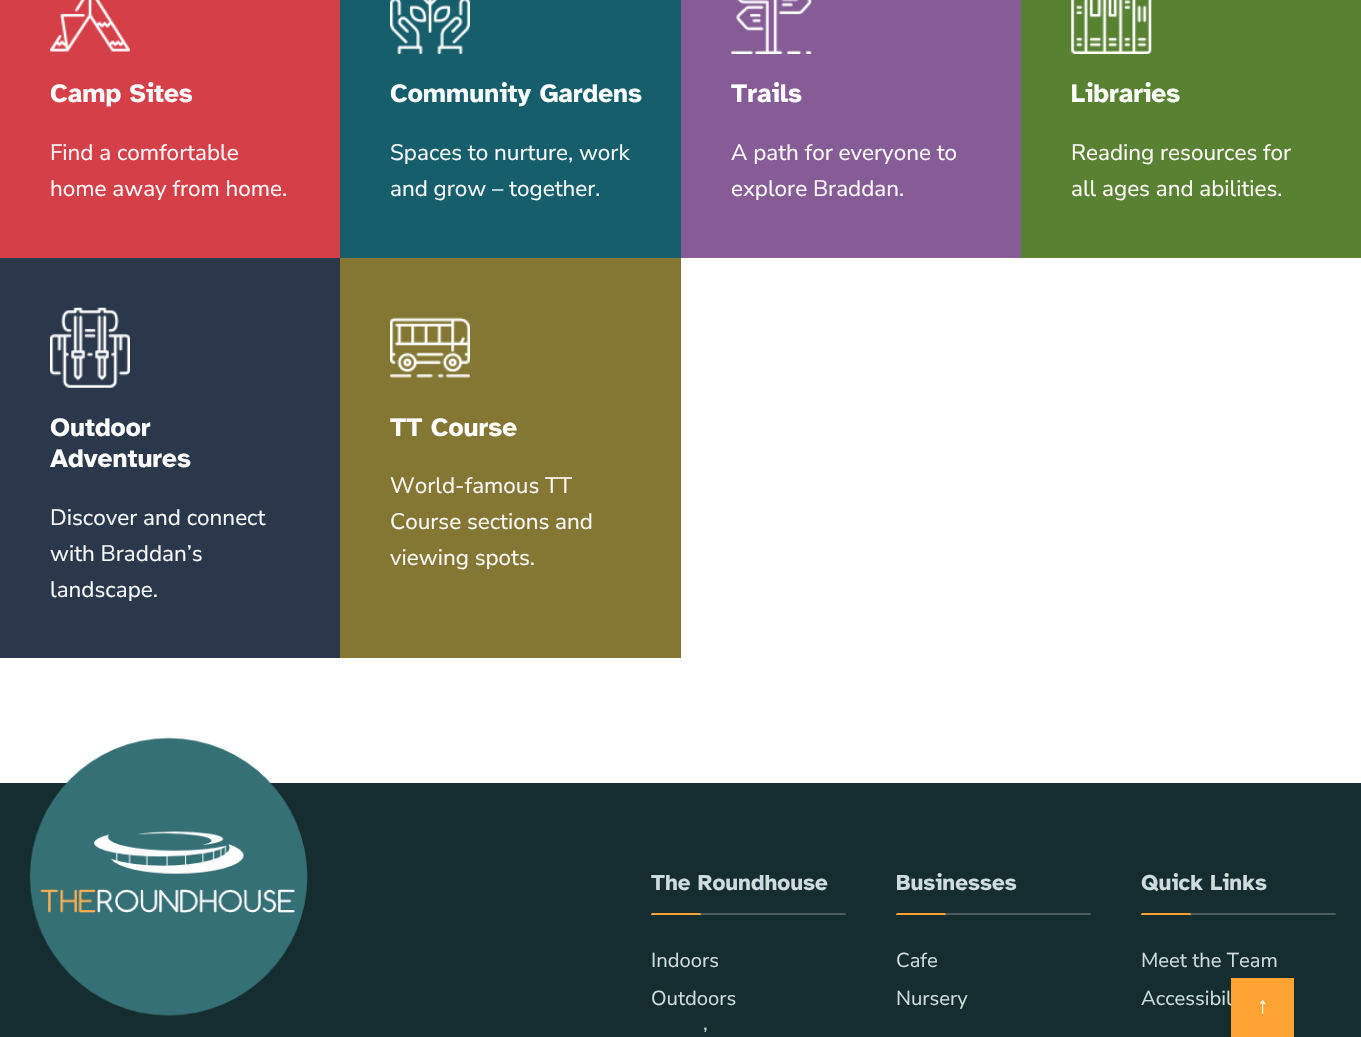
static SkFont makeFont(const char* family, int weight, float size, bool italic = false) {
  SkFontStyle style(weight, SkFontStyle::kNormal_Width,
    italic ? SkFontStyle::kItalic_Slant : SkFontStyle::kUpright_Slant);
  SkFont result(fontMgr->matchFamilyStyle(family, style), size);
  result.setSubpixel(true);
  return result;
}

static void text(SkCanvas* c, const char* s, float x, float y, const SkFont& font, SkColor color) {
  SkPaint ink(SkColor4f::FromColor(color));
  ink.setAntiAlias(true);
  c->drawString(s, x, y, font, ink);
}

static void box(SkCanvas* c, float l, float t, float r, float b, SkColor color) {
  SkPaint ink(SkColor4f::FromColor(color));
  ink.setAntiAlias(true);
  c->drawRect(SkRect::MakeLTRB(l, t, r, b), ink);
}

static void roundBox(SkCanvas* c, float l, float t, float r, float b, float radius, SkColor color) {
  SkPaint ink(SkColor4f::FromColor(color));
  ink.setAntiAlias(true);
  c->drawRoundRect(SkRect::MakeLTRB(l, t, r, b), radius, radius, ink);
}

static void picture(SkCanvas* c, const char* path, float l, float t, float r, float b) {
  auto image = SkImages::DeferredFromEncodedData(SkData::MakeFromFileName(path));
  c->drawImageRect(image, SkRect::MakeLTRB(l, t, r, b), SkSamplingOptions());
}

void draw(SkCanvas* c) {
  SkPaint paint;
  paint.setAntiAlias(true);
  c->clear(0xffffffff);
  box(c, 0, 0, 340, 258, 0xffd54048);
  picture(c, "img_01.png", 50, 0, 130, 52);
  SkFont face1 = makeFont("Atkinson Hyperlegible", 700, 26.25f);
  text(c, "Camp Sites", 50, 102, face1, 0xffffffff);
  SkFont face2 = makeFont("Nunito Sans", 400, 22.5f);
  text(c, "Find a comfortable", 50, 160, face2, 0xfffdf7f8);
  text(c, "home away from home.", 50, 196, face2, 0xfffdf7f8);
  box(c, 340, 0, 681, 258, 0xff165e6b);
  picture(c, "img_02.png", 390, 0, 470, 54);
  text(c, "Community Gardens", 390, 102, face1, 0xffffffff);
  text(c, "Spaces to nurture, work", 390, 160, face2, 0xfff6f9f9);
  text(c, "and grow – together.", 390, 196, face2, 0xfff6f9f9);
  box(c, 681, 0, 1021, 258, 0xff855c95);
  picture(c, "img_03.png", 731, 0, 812, 54);
  text(c, "Trails", 731, 102, face1, 0xffffffff);
  text(c, "A path for everyone to", 731, 160, face2, 0xfffdf7f8);
  text(c, "explore Braddan.", 731, 196, face2, 0xfffdf7f8);
  box(c, 1021, 0, 1361, 258, 0xff588132);
  picture(c, "img_04.png", 1071, 0, 1152, 54);
  text(c, "Libraries", 1071, 102, face1, 0xffffffff);
  text(c, "Reading resources for", 1071, 160, face2, 0xfffdf7f8);
  text(c, "all ages and abilities.", 1071, 196, face2, 0xfffdf7f8);
  box(c, 0, 258, 340, 658, 0xff2b384b);
  picture(c, "img_05.png", 50, 307, 130, 388);
  text(c, "Outdoor", 50, 436, face1, 0xffffffff);
  text(c, "Adventures", 50, 467, face1, 0xffffffff);
  text(c, "Discover and connect", 50, 525, face2, 0xfff6f9f9);
  text(c, "with Braddan’s", 50, 561, face2, 0xfff6f9f9);
  text(c, "landscape.", 50, 597, face2, 0xfff6f9f9);
  box(c, 340, 258, 681, 658, 0xff837733);
  picture(c, "img_06.png", 390, 317, 470, 378);
  text(c, "TT Course", 390, 436, face1, 0xffffffff);
  text(c, "World-famous TT", 390, 493, face2, 0xfffdf7f8);
  text(c, "Course sections and", 390, 529, face2, 0xfffdf7f8);
  text(c, "viewing spots.", 390, 565, face2, 0xfffdf7f8);
  box(c, 0, 783, 1361, 1037, 0xff152d2f);
  picture(c, "img_07.png", 29, 737, 308, 1016);
  SkFont face3 = makeFont("Atkinson Hyperlegible", 700, 22.5f);
  text(c, "The Roundhouse", 651, 890, face3, 0xffcedcdd);
  c->save();
  c->clipRect(SkRect::MakeLTRB(651, 858, 846, 915));
  roundBox(c, 699, 913, 846, 916, 1.5f, 0xff4c5d5e);
  roundBox(c, 651, 913, 701, 916, 1.5f, 0xffffa332);
  c->restore();
  SkFont face4 = makeFont("Nunito Sans", 400, 20.25f);
  text(c, "Indoors", 651, 967, face4, 0xffcedcdd);
  text(c, "Outdoors", 651, 1005, face4, 0xffcedcdd);
  text(c, "’", 703, 1042, face4, 0xffcedcdd);
  text(c, "Businesses", 896, 890, face3, 0xffcedcdd);
  c->save();
  c->clipRect(SkRect::MakeLTRB(896, 858, 1091, 915));
  roundBox(c, 944, 913, 1091, 916, 1.5f, 0xff4c5d5e);
  roundBox(c, 896, 913, 946, 916, 1.5f, 0xffffa332);
  c->restore();
  text(c, "Cafe", 896, 967, face4, 0xffcedcdd);
  text(c, "Nursery", 896, 1005, face4, 0xffcedcdd);
  text(c, "Quick Links", 1141, 890, face3, 0xffcedcdd);
  c->save();
  c->clipRect(SkRect::MakeLTRB(1141, 858, 1336, 915));
  roundBox(c, 1189, 913, 1336, 916, 1.5f, 0xff4c5d5e);
  roundBox(c, 1141, 913, 1191, 916, 1.5f, 0xffffa332);
  c->restore();
  text(c, "Meet the Team", 1141, 967, face4, 0xffcedcdd);
  text(c, "Accessibil", 1141, 1005, face4, 0xffcedcdd);
  box(c, 1231, 978, 1294, 1037, 0xffffa332);
  SkFont face5 = makeFont("Liberation Serif", 400, 22.5f);
  text(c, "↑", 1257, 1013, face5, 0xffffffff);
}
